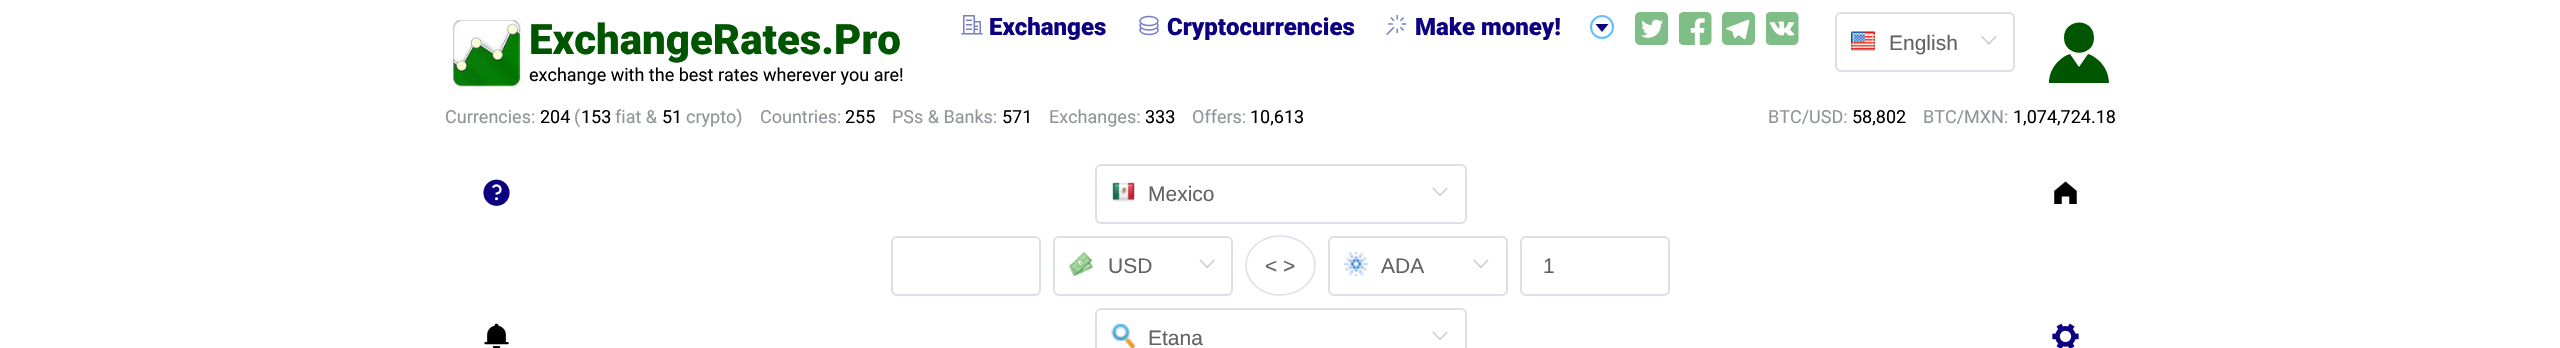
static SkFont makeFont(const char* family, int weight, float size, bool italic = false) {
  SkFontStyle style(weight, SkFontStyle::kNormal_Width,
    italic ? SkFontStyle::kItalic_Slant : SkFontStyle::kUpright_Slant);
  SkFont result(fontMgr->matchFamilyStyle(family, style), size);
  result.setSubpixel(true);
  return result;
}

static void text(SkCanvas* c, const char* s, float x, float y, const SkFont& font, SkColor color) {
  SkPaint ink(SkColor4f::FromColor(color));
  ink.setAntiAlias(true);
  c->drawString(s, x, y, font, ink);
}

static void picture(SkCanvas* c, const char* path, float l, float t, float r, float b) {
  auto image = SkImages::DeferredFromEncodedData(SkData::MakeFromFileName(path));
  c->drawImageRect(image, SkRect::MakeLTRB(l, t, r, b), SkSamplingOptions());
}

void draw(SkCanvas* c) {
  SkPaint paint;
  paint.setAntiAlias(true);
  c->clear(0xffffffff);
  picture(c, "img_01.png", 452, 19, 525, 91);
  SkFont face1 = makeFont("Roboto", 900, 42);
  text(c, "ExchangeRates.Pro", 529, 54, face1, 0xff005500);
  SkFont face2 = makeFont("Roboto", 400, 18);
  text(c, "exchange with the best rates wherever you are!", 529, 81, face2, 0xff000000);
  picture(c, "img_02.png", 961, 15, 983, 35);
  SkFont face3 = makeFont("Roboto", 900, 24);
  text(c, "Exchanges", 989, 35, face3, 0xff0c0080);
  picture(c, "img_03.png", 1139, 15, 1159, 36);
  text(c, "Cryptocurrencies", 1167, 35, face3, 0xff0c0080);
  picture(c, "img_04.png", 1386, 15, 1407, 35);
  text(c, "Make money!", 1415, 35, face3, 0xff0c0080);
  paint.setStyle(SkPaint::kStroke_Style);
  paint.setStrokeWidth(2);
  paint.setColor(0xff5fbeff);
  c->drawCircle(1602, 27, 11, paint);
  paint.setStyle(SkPaint::kFill_Style);
  paint.setColor(0xff0c0080);
  c->drawPath(SkPathBuilder().moveTo(1595.5f, 24).lineTo(1602, 32).lineTo(1608.5f, 24).close().detach(), paint);
  picture(c, "img_05.png", 1635, 12, 1668, 45);
  picture(c, "img_06.png", 1679, 12, 1712, 45);
  picture(c, "img_07.png", 1722, 12, 1755, 45);
  picture(c, "img_08.png", 1766, 12, 1799, 45);
  picture(c, "img_09.png", 1851, 31, 1875, 52);
  paint.setStyle(SkPaint::kStroke_Style);
  paint.setColor(0xffdcdfe6);
  c->drawRoundRect(SkRect::MakeLTRB(1836, 13, 2014, 71), 5, 5, paint);
  SkFont face4 = makeFont("Liberation Sans", 400, 21);
  text(c, "English", 1889, 50, face4, 0xff606266);
  picture(c, "img_10.png", 1981, 36, 1997, 45);
  paint.setStyle(SkPaint::kFill_Style);
  paint.setColor(0xff005500);
  c->drawPath(SkPathBuilder().moveTo(2088, 54).cubicTo(2100, 58, 2109, 70, 2109, 83).lineTo(2049, 83).cubicTo(2049, 70, 2058, 58, 2070, 54).lineTo(2079, 67).close().moveTo(2094, 38).cubicTo(2094, 58, 2064, 57, 2064, 38).cubicTo(2064, 18, 2094, 17, 2094, 38).close().detach(), paint);
  text(c, "Currencies:", 445, 123, face2, 0xff909399);
  text(c, "204", 540, 123, face2, 0xff000000);
  text(c, "(", 574, 123, face2, 0xff909399);
  text(c, "153", 581, 123, face2, 0xff000000);
  text(c, "fiat &", 615, 123, face2, 0xff909399);
  text(c, "51", 662, 123, face2, 0xff000000);
  text(c, "crypto)", 686, 123, face2, 0xff909399);
  text(c, "Countries:", 760, 123, face2, 0xff909399);
  text(c, "255", 845, 123, face2, 0xff000000);
  text(c, "PSs & Banks:", 892, 123, face2, 0xff909399);
  text(c, "571", 1002, 123, face2, 0xff000000);
  text(c, "Exchanges:", 1049, 123, face2, 0xff909399);
  text(c, "333", 1145, 123, face2, 0xff000000);
  text(c, "Offers:", 1192, 123, face2, 0xff909399);
  text(c, "10,613", 1250, 123, face2, 0xff000000);
  text(c, "BTC/USD:", 1768, 123, face2, 0xff909399);
  text(c, "58,802", 1852, 123, face2, 0xff000000);
  text(c, "BTC/MXN:", 1923, 123, face2, 0xff909399);
  text(c, "1,074,724.18", 2013, 123, face2, 0xff000000);
  picture(c, "img_11.png", 483, 179, 510, 206);
  picture(c, "img_12.png", 1112, 182, 1135, 202);
  paint.setStyle(SkPaint::kStroke_Style);
  paint.setColor(0xffdcdfe6);
  c->drawRoundRect(SkRect::MakeLTRB(1096, 165, 1466, 223), 5, 5, paint);
  text(c, "Mexico", 1148, 201, face4, 0xff606266);
  picture(c, "img_13.png", 1432, 187, 1448, 196);
  picture(c, "img_14.png", 2054, 181, 2077, 204);
  c->drawRoundRect(SkRect::MakeLTRB(892, 237, 1040, 295), 5, 5, paint);
  picture(c, "img_15.png", 1069, 252, 1094, 276);
  c->drawRoundRect(SkRect::MakeLTRB(1054, 237, 1232, 295), 5, 5, paint);
  text(c, "USD", 1108, 273, face4, 0xff606266);
  picture(c, "img_16.png", 1199, 259, 1215, 268);
  paint.setStrokeWidth(1.5f);
  c->drawPath(SkPathBuilder().moveTo(1280, 236).cubicTo(1299.5f, 236, 1315, 249.5f, 1315, 265.5f).cubicTo(1315, 281.5f, 1299.5f, 295, 1280, 295).cubicTo(1261, 295, 1246, 281.5f, 1246, 265.5f).cubicTo(1246, 249.5f, 1261, 236, 1280, 236).close().detach(), paint);
  text(c, "< >", 1265, 273, face4, 0xff606266);
  picture(c, "img_17.png", 1344, 252, 1368, 276);
  paint.setStrokeWidth(2);
  c->drawRoundRect(SkRect::MakeLTRB(1329, 237, 1507, 295), 5, 5, paint);
  text(c, "ADA", 1381, 273, face4, 0xff606266);
  picture(c, "img_18.png", 1473, 259, 1489, 268);
  c->drawRoundRect(SkRect::MakeLTRB(1521, 237, 1669, 295), 5, 5, paint);
  text(c, "1", 1543, 273, face4, 0xff606266);
  picture(c, "img_19.png", 484, 323, 509, 348);
  picture(c, "img_20.png", 1111, 324, 1136, 348);
  c->drawRoundRect(SkRect::MakeLTRB(1096, 309, 1466, 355), 5, 5, paint);
  text(c, "Etana", 1148, 345, face4, 0xff606266);
  picture(c, "img_13.png", 1432, 331, 1448, 340);
  picture(c, "img_21.png", 2052, 323, 2079, 348);
}
